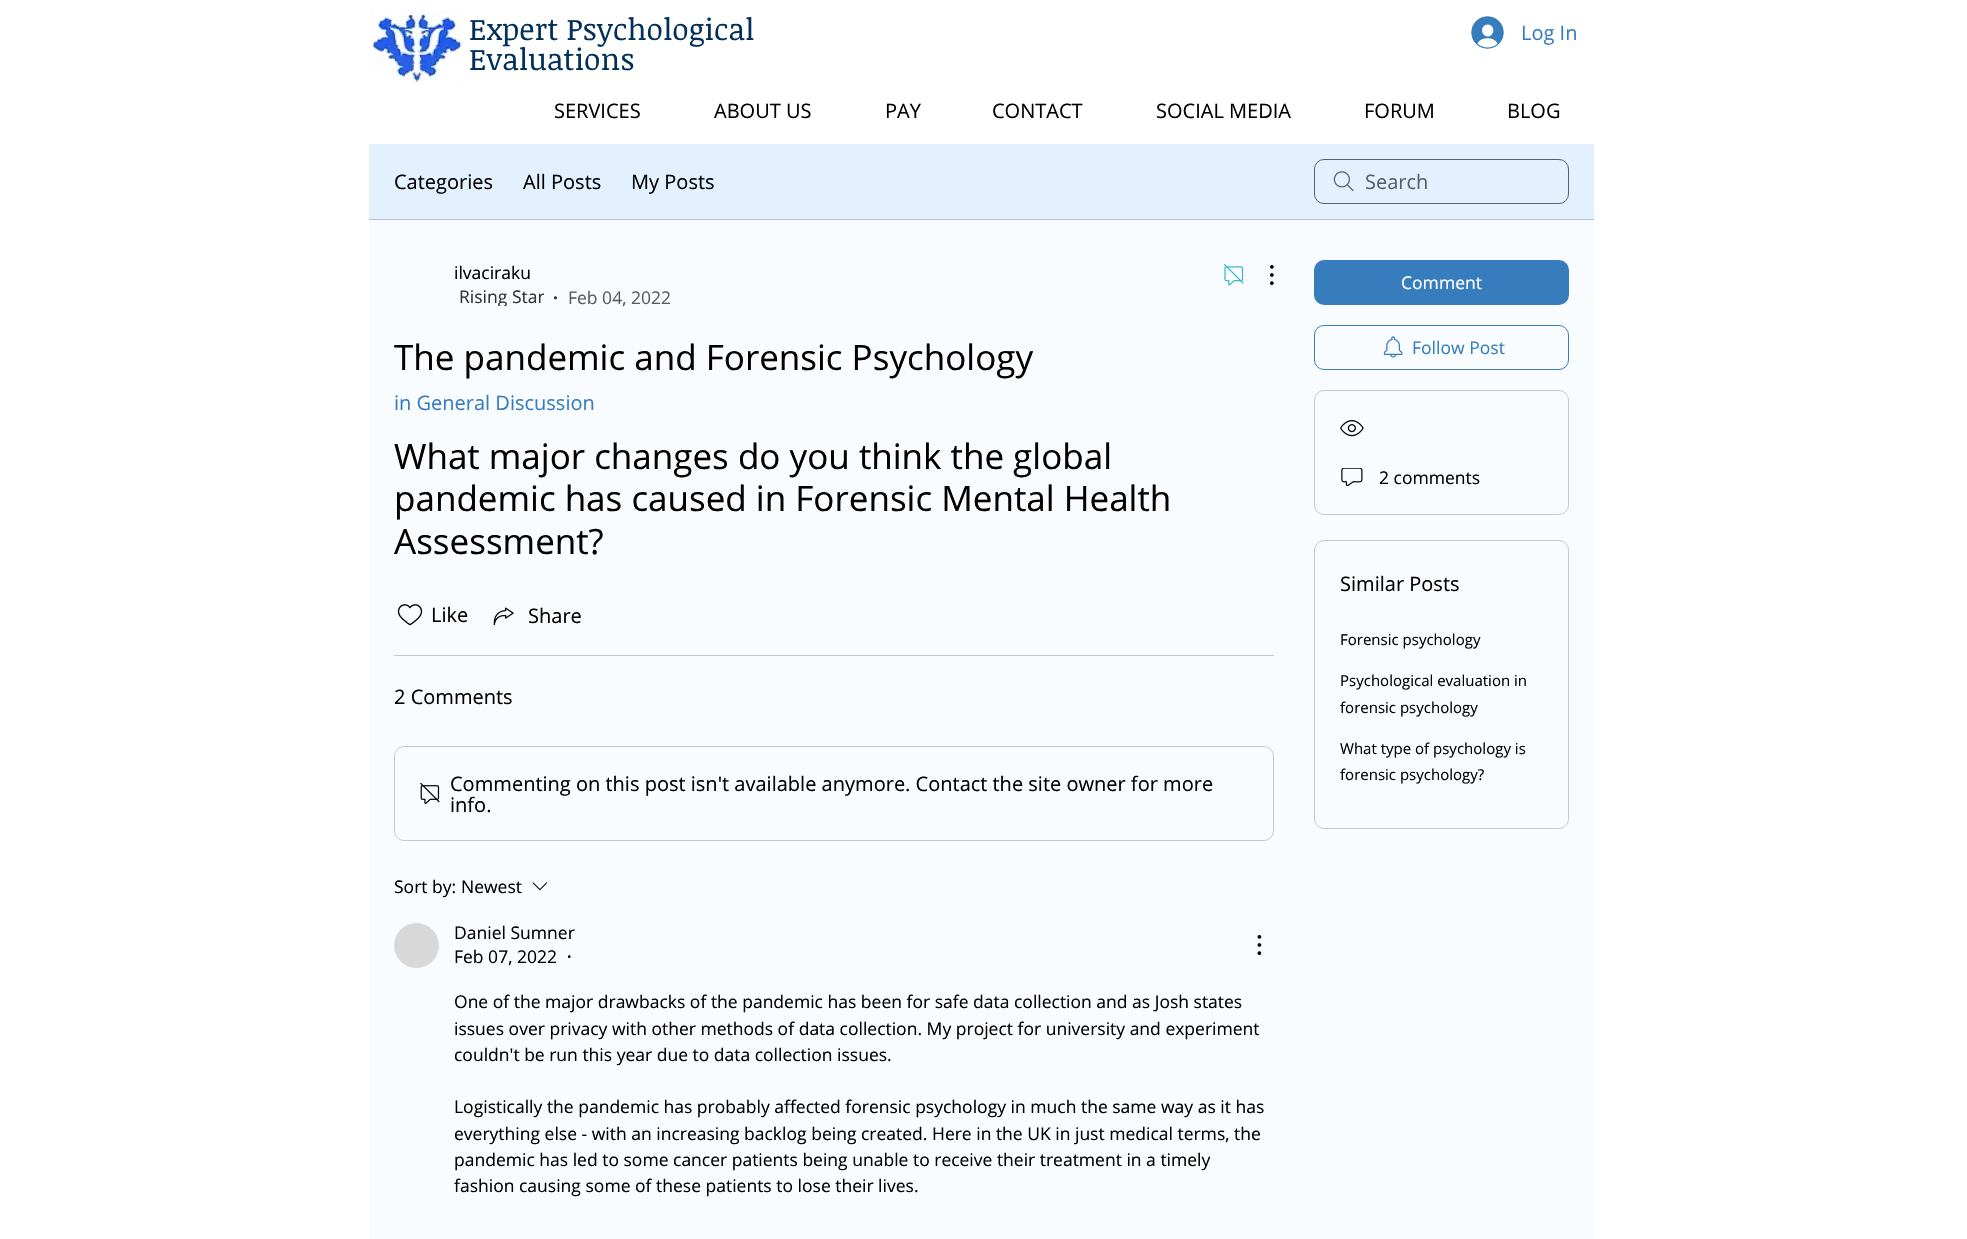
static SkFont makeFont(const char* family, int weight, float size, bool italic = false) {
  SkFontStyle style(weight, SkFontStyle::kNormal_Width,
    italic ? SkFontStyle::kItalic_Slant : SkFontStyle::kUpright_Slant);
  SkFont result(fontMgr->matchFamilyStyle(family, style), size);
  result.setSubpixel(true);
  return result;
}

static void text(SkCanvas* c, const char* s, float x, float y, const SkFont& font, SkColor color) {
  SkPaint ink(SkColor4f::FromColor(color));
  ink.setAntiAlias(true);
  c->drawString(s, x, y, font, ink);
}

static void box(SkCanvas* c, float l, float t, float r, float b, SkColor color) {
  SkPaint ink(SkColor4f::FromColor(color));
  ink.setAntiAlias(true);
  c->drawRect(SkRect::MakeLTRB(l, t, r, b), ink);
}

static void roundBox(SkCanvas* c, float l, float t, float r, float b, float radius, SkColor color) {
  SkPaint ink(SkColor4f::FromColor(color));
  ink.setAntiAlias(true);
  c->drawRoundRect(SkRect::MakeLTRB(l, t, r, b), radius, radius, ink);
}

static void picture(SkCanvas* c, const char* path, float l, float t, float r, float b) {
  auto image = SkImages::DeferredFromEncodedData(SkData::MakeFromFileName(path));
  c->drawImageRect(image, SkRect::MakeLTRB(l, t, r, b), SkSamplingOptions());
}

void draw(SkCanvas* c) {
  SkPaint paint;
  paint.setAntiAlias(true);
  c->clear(0xffffffff);
  picture(c, "img_01.png", 371, 10, 463, 83);
  SkFont face1 = makeFont("Noticia Text", 400, 30);
  text(c, "Expert Psychological", 469, 40, face1, 0xff00305b);
  text(c, "Evaluations", 469, 70, face1, 0xff00305b);
  picture(c, "img_02.png", 1471, 16, 1504, 49);
  SkFont face2 = makeFont("Open Sans", 400, 20);
  text(c, "Log In", 1521, 40, face2, 0xff377dbd);
  text(c, "SERVICES", 554, 118, face2, 0xff000000);
  text(c, "ABOUT US", 714, 118, face2, 0xff000000);
  text(c, "PAY", 885, 118, face2, 0xff000000);
  text(c, "CONTACT", 992, 118, face2, 0xff000000);
  text(c, "SOCIAL MEDIA", 1156, 118, face2, 0xff000000);
  text(c, "FORUM", 1364, 118, face2, 0xff000000);
  text(c, "BLOG", 1507, 118, face2, 0xff000000);
  box(c, 369, 144, 1594, 219, 0xffe3f0fe);
  box(c, 369, 219, 1594, 220, 0xffb6c0cb);
  text(c, "Categories", 394, 189, face2, 0xff000000);
  text(c, "All Posts", 523, 189, face2, 0xff000000);
  text(c, "My Posts", 631, 189, face2, 0xff000000);
  picture(c, "img_03.png", 1333, 171, 1354, 192);
  paint.setStyle(SkPaint::kStroke_Style);
  paint.setStrokeWidth(1);
  paint.setColor(0xff5b6066);
  c->drawRoundRect(SkRect::MakeLTRB(1314.5f, 159.5f, 1568.5f, 203.5f), 9.5f, 9.5f, paint);
  text(c, "Search", 1365, 189, face2, 0xff5b6066);
  box(c, 369, 220, 1594, 1239, 0xfff9fcff);
  SkFont face3 = makeFont("Open Sans", 400, 17.5f);
  text(c, "ilvaciraku", 454, 279, face3, 0xff000000);
  c->save();
  c->clipRect(SkRect::MakeLTRB(459, 286, 544, 306));
  text(c, "Rising Star", 459, 303, face3, 0xff323233);
  c->restore();
  SkFont face4 = makeFont("Open Sans", 700, 17.5f);
  text(c, "·", 553, 304, face4, 0xff323233);
  text(c, "Feb 04, 2022", 568, 304, face3, 0xff5a5b5c);
  picture(c, "img_04.png", 1224, 264, 1244, 286);
  picture(c, "img_05.png", 1270, 265, 1274, 285);
  SkFont face5 = makeFont("Open Sans", 400, 35);
  text(c, "The pandemic and Forensic Psychology", 394, 370, face5, 0xff000000);
  text(c, "in General Discussion", 394, 410, face2, 0xff377dbd);
  text(c, "What major changes do you think the global", 394, 469, face5, 0xff000000);
  text(c, "pandemic has caused in Forensic Mental Health", 394, 511, face5, 0xff000000);
  text(c, "Assessment?", 394, 554, face5, 0xff000000);
  picture(c, "img_06.png", 397, 604, 423, 626);
  text(c, "Like", 431, 622, face2, 0xff000000);
  picture(c, "img_07.png", 493, 607, 514, 625);
  text(c, "Share", 528, 623, face2, 0xff000000);
  box(c, 394, 655, 1274, 656, 0xffc7cacc);
  text(c, "2 Comments", 394, 704, face2, 0xff000000);
  paint.setColor(0xffc7cacc);
  c->drawRoundRect(SkRect::MakeLTRB(394.5f, 746.5f, 1273.5f, 840.5f), 9.5f, 9.5f, paint);
  picture(c, "img_08.png", 420, 783, 440, 804);
  text(c, "Commenting on this post isn't available anymore. Contact the site owner for more", 450, 791, face2, 0xff000000);
  text(c, "info.", 450, 812, face2, 0xff000000);
  text(c, "Sort by:", 394, 893, face3, 0xff000000);
  text(c, "Newest", 461, 893, face3, 0xff000000);
  picture(c, "img_09.png", 532, 882, 548, 891);
  paint.setStyle(SkPaint::kFill_Style);
  paint.setColor(0xffd8d8d8);
  c->drawCircle(416.5f, 945.5f, 22.5f, paint);
  text(c, "Daniel Sumner", 454, 939, face3, 0xff000000);
  text(c, "Feb 07, 2022", 454, 963, face3, 0xff000000);
  SkFont face6 = makeFont("Open Sans", 400, 12);
  text(c, "•", 567, 961, face6, 0xff000000);
  picture(c, "img_10.png", 1257, 935, 1262, 955);
  text(c, "One of the major drawbacks of the pandemic has been for safe data collection and as Josh states", 454, 1008, face3, 0xff000000);
  text(c, "issues over privacy with other methods of data collection. My project for university and experiment", 454, 1035, face3, 0xff000000);
  text(c, "couldn't be run this year due to data collection issues.", 454, 1061, face3, 0xff000000);
  text(c, "Logistically the pandemic has probably affected forensic psychology in much the same way as it has", 454, 1113, face3, 0xff000000);
  text(c, "everything else - with an increasing backlog being created. Here in the UK in just medical terms, the", 454, 1140, face3, 0xff000000);
  text(c, "pandemic has led to some cancer patients being unable to receive their treatment in a timely", 454, 1166, face3, 0xff000000);
  text(c, "fashion causing some of these patients to lose their lives.", 454, 1192, face3, 0xff000000);
  roundBox(c, 1314, 260, 1569, 305, 10, 0xff377dbd);
  text(c, "Comment", 1401, 289, face3, 0xffffffff);
  paint.setStyle(SkPaint::kStroke_Style);
  paint.setColor(0xff377dbd);
  c->drawRoundRect(SkRect::MakeLTRB(1314.5f, 325.5f, 1568.5f, 369.5f), 9.5f, 9.5f, paint);
  picture(c, "img_11.png", 1383, 336, 1403, 358);
  text(c, "Follow Post", 1412, 354, face3, 0xff377dbd);
  paint.setColor(0xffc7cacc);
  c->drawRoundRect(SkRect::MakeLTRB(1314.5f, 390.5f, 1568.5f, 514.5f), 9.5f, 9.5f, paint);
  picture(c, "img_12.png", 1340, 420, 1364, 437);
  picture(c, "img_13.png", 1341, 468, 1363, 486);
  text(c, "2 comments", 1379, 484, face3, 0xff000000);
  c->drawRoundRect(SkRect::MakeLTRB(1314.5f, 540.5f, 1568.5f, 828.5f), 9.5f, 9.5f, paint);
  text(c, "Similar Posts", 1340, 591, face2, 0xff000000);
  SkFont face7 = makeFont("Open Sans", 400, 15);
  text(c, "Forensic psychology", 1340, 645, face7, 0xff000000);
  text(c, "Psychological evaluation in", 1340, 686, face7, 0xff000000);
  text(c, "forensic psychology", 1340, 713, face7, 0xff000000);
  text(c, "What type of psychology is", 1340, 754, face7, 0xff000000);
  text(c, "forensic psychology?", 1340, 780, face7, 0xff000000);
}
